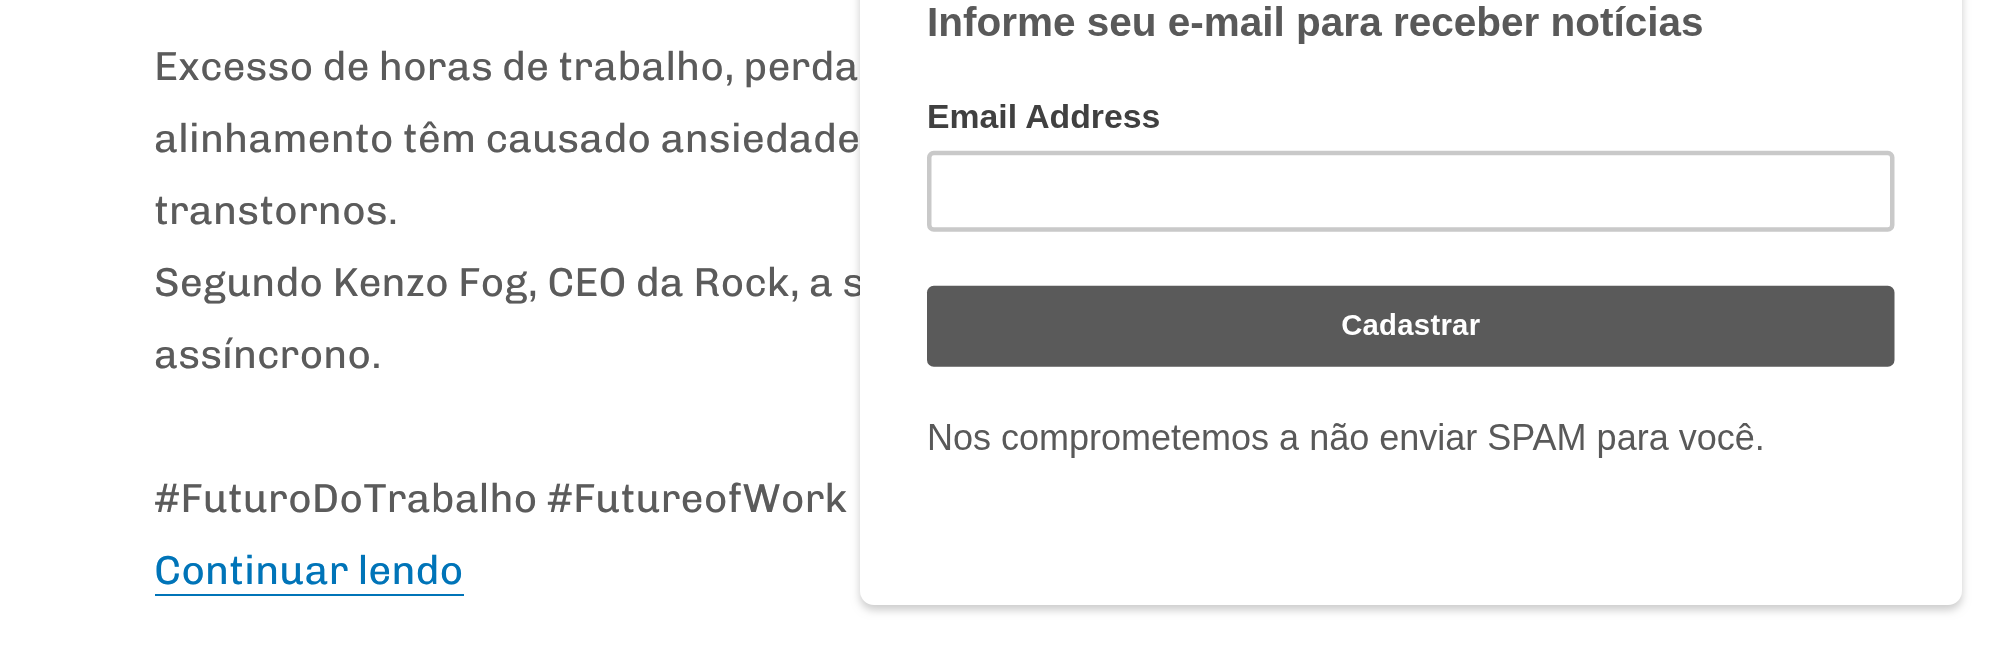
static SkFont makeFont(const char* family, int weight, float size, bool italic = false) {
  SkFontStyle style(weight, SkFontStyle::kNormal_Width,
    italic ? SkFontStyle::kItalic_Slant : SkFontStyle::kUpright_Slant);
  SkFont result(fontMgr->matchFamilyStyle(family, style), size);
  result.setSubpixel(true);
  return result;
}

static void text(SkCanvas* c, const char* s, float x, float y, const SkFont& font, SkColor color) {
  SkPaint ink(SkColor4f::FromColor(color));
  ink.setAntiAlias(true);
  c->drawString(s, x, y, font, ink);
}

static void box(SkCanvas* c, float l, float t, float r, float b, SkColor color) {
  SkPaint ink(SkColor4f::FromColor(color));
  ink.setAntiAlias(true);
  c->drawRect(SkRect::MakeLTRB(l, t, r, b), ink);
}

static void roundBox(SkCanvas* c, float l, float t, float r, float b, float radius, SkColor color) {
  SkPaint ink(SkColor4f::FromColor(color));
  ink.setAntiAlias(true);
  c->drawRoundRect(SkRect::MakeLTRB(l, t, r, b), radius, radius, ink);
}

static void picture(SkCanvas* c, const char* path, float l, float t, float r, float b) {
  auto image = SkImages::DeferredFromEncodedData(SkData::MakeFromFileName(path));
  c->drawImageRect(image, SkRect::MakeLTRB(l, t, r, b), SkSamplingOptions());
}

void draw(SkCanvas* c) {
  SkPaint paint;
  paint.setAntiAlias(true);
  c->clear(0xffffffff);
  SkFont face1 = makeFont("Chivo", 400, 40.5f);
  text(c, "Excesso de horas de trabalho, perda", 154, 80, face1, 0xff5b5b5b);
  text(c, "alinhamento têm causado ansiedade", 154, 152, face1, 0xff5b5b5b);
  text(c, "transtornos.", 154, 224, face1, 0xff5b5b5b);
  text(c, "Segundo Kenzo Fog, CEO da Rock, a s", 154, 296, face1, 0xff5b5b5b);
  text(c, "assíncrono.", 154, 368, face1, 0xff5b5b5b);
  text(c, "#FuturoDoTrabalho #FutureofWork", 154, 512, face1, 0xff5b5b5b);
  text(c, "Continuar lendo", 154, 584, face1, 0xff0074b8);
  box(c, 155, 594, 464, 596, 0xff0074b8);
  paint.setColor(0x33000000);
  paint.setMaskFilter(SkMaskFilter::MakeBlur(kNormal_SkBlurStyle, 4.5f));
  c->drawRoundRect(SkRect::MakeLTRB(860, -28, 1962, 610), 14, 14, paint);
  paint.setMaskFilter(nullptr);
  roundBox(c, 860, -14, 1962, 605, 14, 0xffffffff);
  picture(c, "img_01.png", 926, 6, 1895, 458);
}
